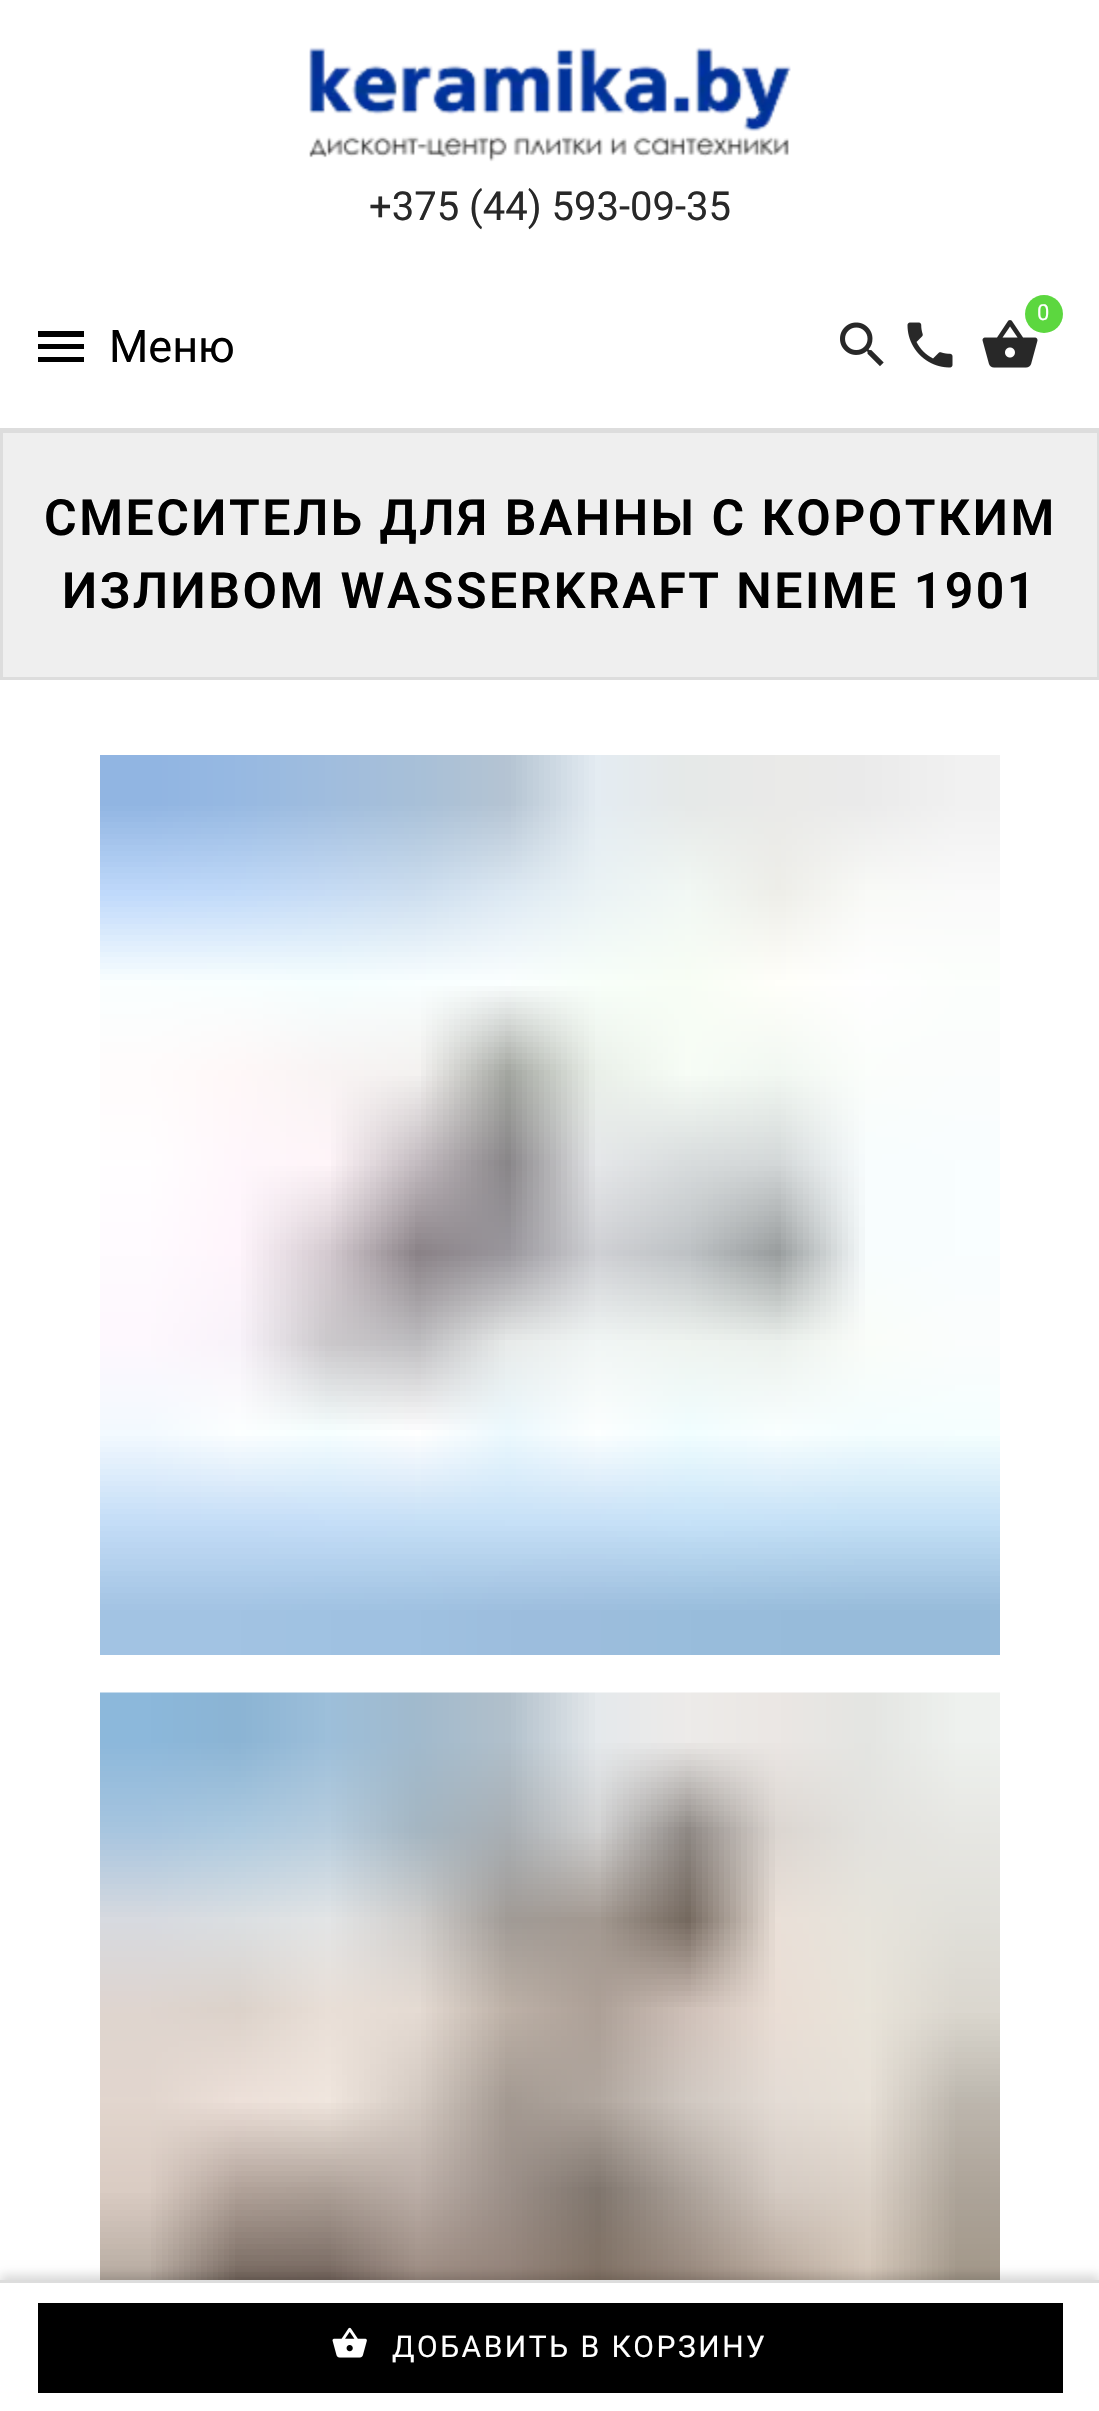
static SkFont makeFont(const char* family, int weight, float size, bool italic = false) {
  SkFontStyle style(weight, SkFontStyle::kNormal_Width,
    italic ? SkFontStyle::kItalic_Slant : SkFontStyle::kUpright_Slant);
  SkFont result(fontMgr->matchFamilyStyle(family, style), size);
  result.setSubpixel(true);
  return result;
}

static void text(SkCanvas* c, const char* s, float x, float y, const SkFont& font, SkColor color) {
  SkPaint ink(SkColor4f::FromColor(color));
  ink.setAntiAlias(true);
  c->drawString(s, x, y, font, ink);
}

static void spacedText(SkCanvas* c, const char* s, float x, float y, const SkFont& font, const SkPaint& ink, float letter, float word) {
  std::vector<SkGlyphID> glyphs(font.countText(s, strlen(s), SkTextEncoding::kUTF8));
  std::vector<float> xs(glyphs.size());
  font.textToGlyphs(s, strlen(s), SkTextEncoding::kUTF8, glyphs);
  font.getXPos(glyphs, xs, x);
  float extra = 0;
  for (size_t i = 0; i < glyphs.size(); i++) {
    xs[i] += extra;
    extra += letter + word * (glyphs[i] == font.unicharToGlyph(' '));
  }
  c->drawTextBlob(SkTextBlob::MakeFromPosHGlyphs(glyphs, xs, y, font), 0, 0, ink);
}

static void box(SkCanvas* c, float l, float t, float r, float b, SkColor color) {
  SkPaint ink(SkColor4f::FromColor(color));
  ink.setAntiAlias(true);
  c->drawRect(SkRect::MakeLTRB(l, t, r, b), ink);
}

static void picture(SkCanvas* c, const char* path, float l, float t, float r, float b) {
  auto image = SkImages::DeferredFromEncodedData(SkData::MakeFromFileName(path));
  c->drawImageRect(image, SkRect::MakeLTRB(l, t, r, b), SkSamplingOptions());
}

void draw(SkCanvas* c) {
  SkPaint paint;
  paint.setAntiAlias(true);
  c->clear(0xffffffff);
  box(c, 0, 428, 1099, 430, 0xffdddddd);
  picture(c, "img_01.png", 309, 47, 791, 162);
  SkFont face1 = makeFont("Roboto", 400, 40);
  text(c, "+375 (44) 593-09-35", 369, 220, face1, 0xff282828);
  picture(c, "img_02.png", 982, 320, 1038, 368);
  paint.setColor(0xff5cd73f);
  c->drawCircle(1044, 314, 19, paint);
  SkFont face2 = makeFont("Roboto", 400, 22);
  text(c, "0", 1037, 320, face2, 0xffffffff);
  picture(c, "img_03.png", 840, 322, 884, 367);
  picture(c, "img_04.png", 907, 322, 953, 368);
  paint.setColor(0xff000000);
  c->drawPath(SkPathBuilder().moveTo(38, 362).lineTo(38, 357).lineTo(84, 357).lineTo(84, 362).close().moveTo(38, 349).lineTo(38, 344).lineTo(84, 344).lineTo(84, 349).close().moveTo(38, 331).lineTo(84, 331).lineTo(84, 337).lineTo(38, 337).close().detach(), paint);
  SkFont face3 = makeFont("Roboto", 400, 45);
  text(c, "Меню", 109, 362, face3, 0xff000000);
  paint.setColor(0xffefefef);
  c->drawRect(SkRect::MakeLTRB(1.5f, 431.5f, 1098.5f, 678.5f), paint);
  paint.setStyle(SkPaint::kStroke_Style);
  paint.setStrokeWidth(3);
  paint.setColor(0xffdddddd);
  c->drawRect(SkRect::MakeLTRB(1.5f, 431.5f, 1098.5f, 678.5f), paint);
  SkFont face4 = makeFont("Roboto", 600, 50);
  paint.setStyle(SkPaint::kFill_Style);
  paint.setColor(0xff000000);
  spacedText(c, "СМЕСИТЕЛЬ ДЛЯ ВАННЫ С КОРОТКИМ", 44, 535, face4, paint, 2.5f, 0);
  spacedText(c, "ИЗЛИВОМ WASSERKRAFT NEIME 1901", 62, 608, face4, paint, 2.5f, 0);
  picture(c, "img_05.png", 100, 755, 1000, 1655);
  picture(c, "img_06.png", 100, 1692, 1000, 2280);
  paint.setColor(0x26000000);
  paint.setMaskFilter(SkMaskFilter::MakeBlur(kNormal_SkBlurStyle, 5));
  c->drawRect(SkRect::MakeLTRB(0, 2275, 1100, 2408), paint);
  paint.setMaskFilter(nullptr);
  box(c, 0, 2283, 1099, 2411, 0xffffffff);
  box(c, 0, 2280, 1099, 2283, 0xffdddddd);
  box(c, 38, 2303, 1063, 2393, 0xff000000);
  picture(c, "img_07.png", 332, 2327, 367, 2358);
  SkFont face5 = makeFont("Roboto", 400, 30);
  paint.setColor(0xffffffff);
  spacedText(c, "ДОБАВИТЬ В КОРЗИНУ", 392, 2357, face5, paint, 2.5f, 0);
}
